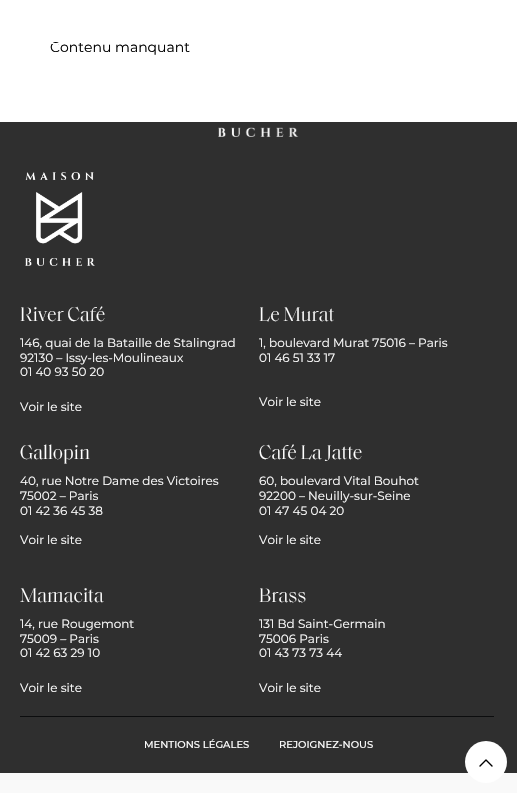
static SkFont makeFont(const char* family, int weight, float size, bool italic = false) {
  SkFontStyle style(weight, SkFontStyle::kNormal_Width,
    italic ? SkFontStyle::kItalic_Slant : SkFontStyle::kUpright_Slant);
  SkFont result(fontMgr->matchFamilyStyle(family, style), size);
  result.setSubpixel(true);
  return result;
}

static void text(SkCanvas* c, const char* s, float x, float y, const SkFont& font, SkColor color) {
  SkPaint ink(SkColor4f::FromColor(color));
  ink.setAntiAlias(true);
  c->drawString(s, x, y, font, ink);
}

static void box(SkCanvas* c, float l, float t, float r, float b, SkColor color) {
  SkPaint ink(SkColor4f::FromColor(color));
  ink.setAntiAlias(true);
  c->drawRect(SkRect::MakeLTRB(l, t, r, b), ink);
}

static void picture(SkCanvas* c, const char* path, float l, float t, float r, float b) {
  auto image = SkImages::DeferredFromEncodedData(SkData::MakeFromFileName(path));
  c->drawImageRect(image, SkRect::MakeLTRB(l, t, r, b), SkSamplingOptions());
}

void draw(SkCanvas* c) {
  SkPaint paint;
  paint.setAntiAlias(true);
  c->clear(0xfff9f9f9);
  box(c, 0, 0, 517, 122, 0xffffffff);
  SkFont face1 = makeFont("Montserrat", 400, 14);
  text(c, "Contenu manquant", 50, 52, face1, 0xff000000);
  box(c, 51, 43, 66, 44, 0xffffffff);
  box(c, 0, 122, 517, 773, 0xff2f2f2f);
  picture(c, "img_01.png", 218, 127, 299, 137);
  picture(c, "img_02.png", 25, 172, 95, 266);
  SkFont face2 = makeFont("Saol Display", 300, 20);
  text(c, "River Café", 20, 321, face2, 0xffffffff);
  SkFont face3 = makeFont("Montserrat", 400, 12);
  text(c, "146, quai de la Bataille de Stalingrad", 20, 347, face3, 0xffffffff);
  text(c, "92130 – Issy-les-Moulineaux", 20, 362, face3, 0xffffffff);
  text(c, "01 40 93 50 20", 20, 376, face3, 0xffffffff);
  text(c, "Voir le site", 20, 411, face3, 0xffffffff);
  text(c, "Le Murat", 259, 321, face2, 0xffffffff);
  text(c, "1, boulevard Murat 75016 – Paris", 259, 347, face3, 0xffffffff);
  text(c, "01 46 51 33 17", 259, 362, face3, 0xffffffff);
  text(c, "Voir le site", 259, 406, face3, 0xffffffff);
  text(c, "Gallopin", 20, 459, face2, 0xffffffff);
  text(c, "40, rue Notre Dame des Victoires", 20, 485, face3, 0xffffffff);
  text(c, "75002 – Paris", 20, 500, face3, 0xffffffff);
  text(c, "01 42 36 45 38", 20, 515, face3, 0xffffffff);
  text(c, "Voir le site", 20, 544, face3, 0xffffffff);
  text(c, "Café La Jatte", 259, 459, face2, 0xffffffff);
  text(c, "60, boulevard Vital Bouhot", 259, 485, face3, 0xffffffff);
  text(c, "92200 – Neuilly-sur-Seine", 259, 500, face3, 0xffffffff);
  text(c, "01 47 45 04 20", 259, 515, face3, 0xffffffff);
  text(c, "Voir le site", 259, 544, face3, 0xffffffff);
  text(c, "Mamacita", 20, 602, face2, 0xffffffff);
  text(c, "14, rue Rougemont", 20, 628, face3, 0xffffffff);
  text(c, "75009 – Paris", 20, 643, face3, 0xffffffff);
  text(c, "01 42 63 29 10", 20, 657, face3, 0xffffffff);
  text(c, "Voir le site", 20, 692, face3, 0xffffffff);
  text(c, "Brass", 259, 602, face2, 0xffffffff);
  text(c, "131 Bd Saint-Germain", 259, 628, face3, 0xffffffff);
  text(c, "75006 Paris", 259, 643, face3, 0xffffffff);
  text(c, "01 43 73 73 44", 259, 657, face3, 0xffffffff);
  text(c, "Voir le site", 259, 692, face3, 0xffffffff);
  box(c, 20, 716, 494, 717, 0xff0c0d0e);
  SkFont face4 = makeFont("Montserrat", 500, 10);
  text(c, "MENTIONS LÉGALES", 144, 748, face4, 0xffffffff);
  text(c, "REJOIGNEZ-NOUS", 279, 748, face4, 0xffffffff);
  paint.setColor(0xffffffff);
  c->drawCircle(486, 762, 21, paint);
  paint.setStyle(SkPaint::kStroke_Style);
  paint.setStrokeWidth(1.4f);
  paint.setStrokeCap(SkPaint::kRound_Cap);
  paint.setStrokeJoin(SkPaint::kRound_Join);
  paint.setColor(0xff000000);
  c->drawPath(SkPathBuilder().moveTo(486, 760).lineTo(492, 766).moveTo(480, 766).lineTo(486, 760).detach(), paint);
}
